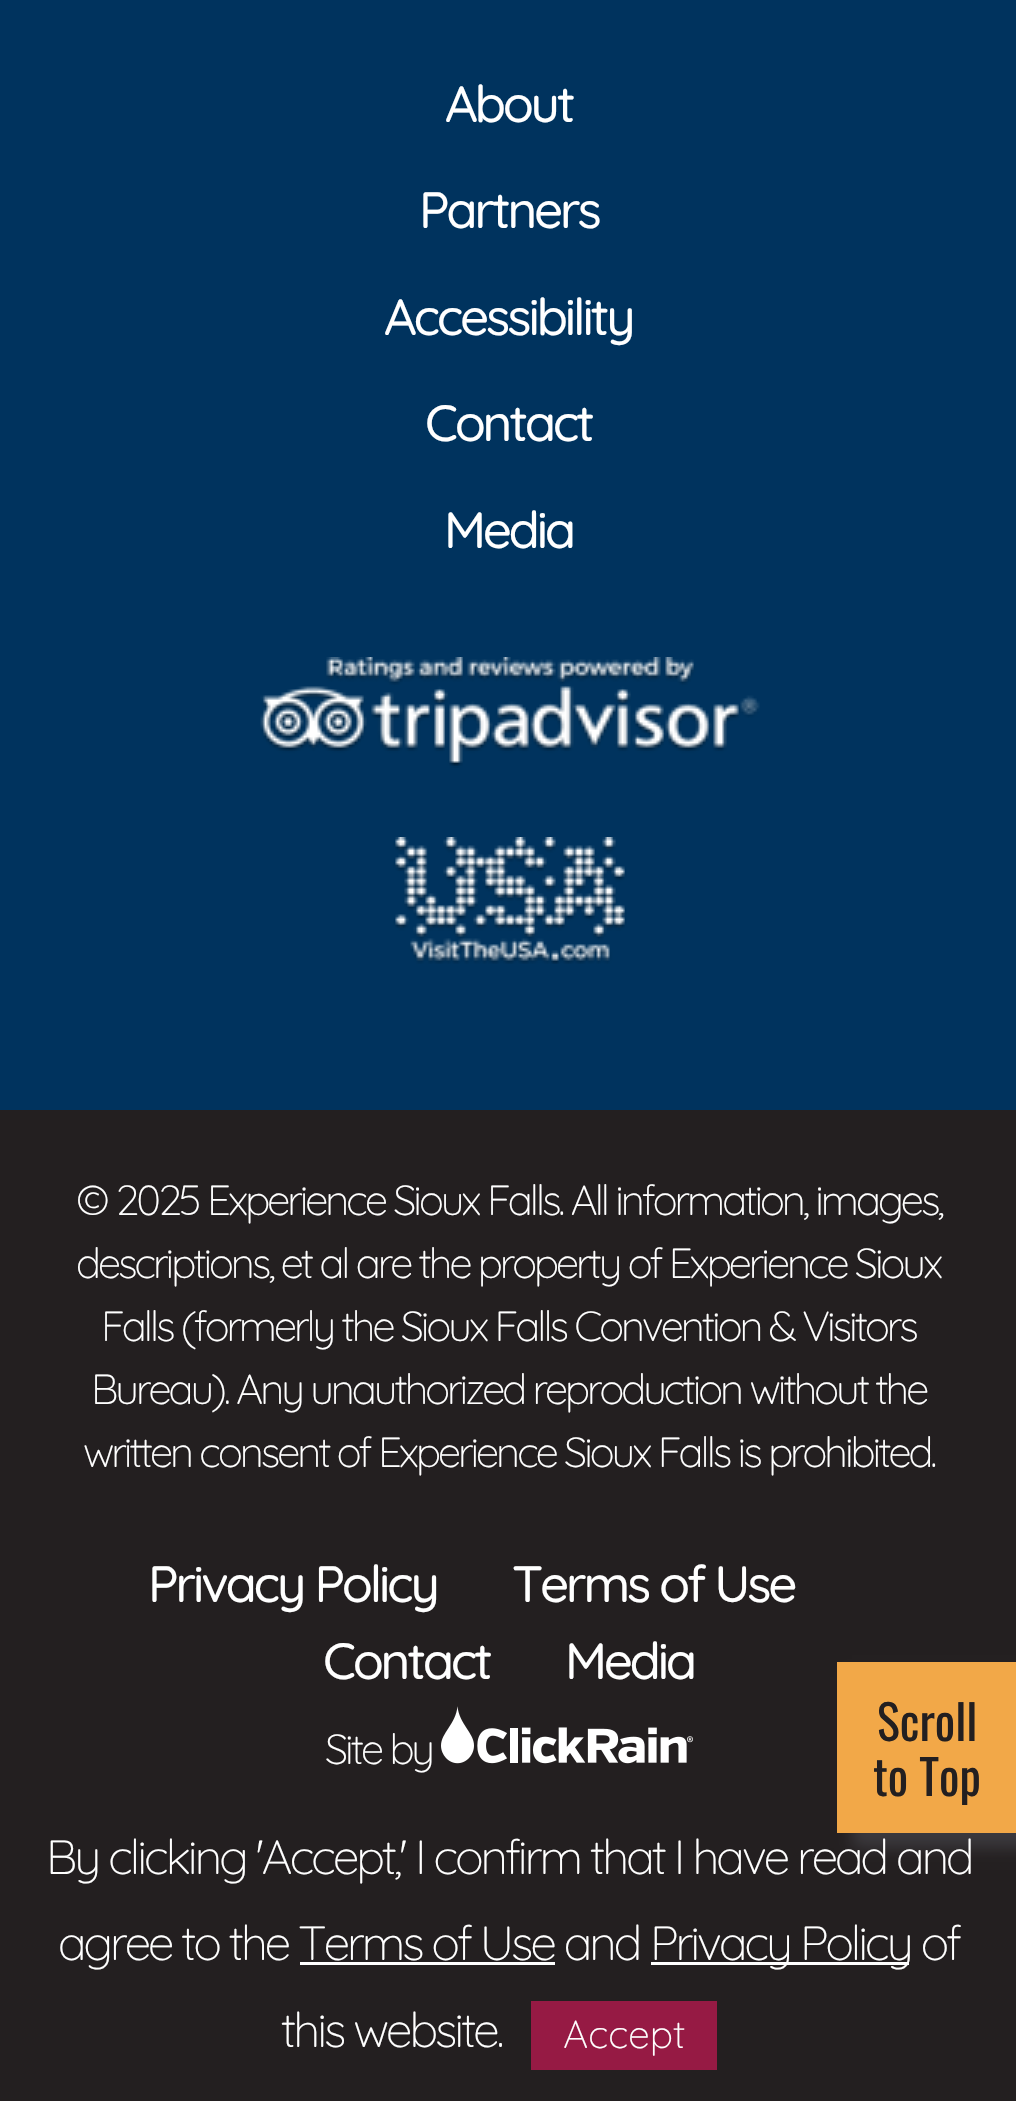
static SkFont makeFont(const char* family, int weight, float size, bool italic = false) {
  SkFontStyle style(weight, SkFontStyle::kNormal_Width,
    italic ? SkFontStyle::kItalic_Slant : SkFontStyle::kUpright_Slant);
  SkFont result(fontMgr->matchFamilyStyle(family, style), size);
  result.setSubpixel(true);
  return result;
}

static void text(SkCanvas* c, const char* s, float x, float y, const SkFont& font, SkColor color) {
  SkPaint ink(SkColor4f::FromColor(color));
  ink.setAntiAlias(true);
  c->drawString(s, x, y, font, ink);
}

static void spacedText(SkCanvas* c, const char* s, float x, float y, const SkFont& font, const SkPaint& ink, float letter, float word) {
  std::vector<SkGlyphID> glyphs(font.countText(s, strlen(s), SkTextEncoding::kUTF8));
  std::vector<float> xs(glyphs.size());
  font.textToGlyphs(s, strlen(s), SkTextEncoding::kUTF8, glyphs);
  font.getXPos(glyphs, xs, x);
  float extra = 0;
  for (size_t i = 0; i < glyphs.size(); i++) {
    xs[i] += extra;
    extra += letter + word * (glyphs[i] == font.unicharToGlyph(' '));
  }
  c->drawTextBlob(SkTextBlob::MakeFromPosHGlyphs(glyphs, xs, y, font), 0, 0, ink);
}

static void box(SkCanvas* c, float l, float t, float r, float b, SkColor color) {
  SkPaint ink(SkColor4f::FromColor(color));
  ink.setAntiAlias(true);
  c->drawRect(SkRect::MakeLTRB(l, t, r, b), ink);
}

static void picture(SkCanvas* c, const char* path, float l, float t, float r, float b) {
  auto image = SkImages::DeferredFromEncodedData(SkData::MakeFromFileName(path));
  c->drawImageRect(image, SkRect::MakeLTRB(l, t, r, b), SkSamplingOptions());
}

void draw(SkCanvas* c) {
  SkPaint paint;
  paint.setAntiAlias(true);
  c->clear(0xff00335e);
  SkFont face1 = makeFont("Quicksand", 500, 51);
  paint.setColor(0xffffffff);
  spacedText(c, "About", 445, 122, face1, paint, -3, 0);
  spacedText(c, "Partners", 419, 228, face1, paint, -3, 0);
  spacedText(c, "Accessibility", 384, 335, face1, paint, -3, 0);
  spacedText(c, "Contact", 425, 441, face1, paint, -3, 0);
  spacedText(c, "Media", 444, 548, face1, paint, -3, 0);
  picture(c, "img_01.png", 260, 657, 760, 768);
  picture(c, "img_02.png", 393, 837, 627, 964);
  box(c, 0, 1110, 1016, 2101, 0xff231f20);
  SkFont face2 = makeFont("Quicksand", 300, 42);
  spacedText(c, "© 2025 Experience Sioux Falls. All information, images,", 76, 1215, face2, paint, -3, 0);
  spacedText(c, "descriptions, et al are the property of Experience Sioux", 76, 1278, face2, paint, -3, 0);
  spacedText(c, "Falls (formerly the Sioux Falls Convention & Visitors", 101, 1341, face2, paint, -3, 0);
  spacedText(c, "Bureau). Any unauthorized reproduction without the", 91, 1404, face2, paint, -3, 0);
  spacedText(c, "written consent of Experience Sioux Falls is prohibited.", 83, 1467, face2, paint, -3, 0);
  spacedText(c, "Privacy Policy", 148, 1602, face1, paint, -3, 0);
  spacedText(c, "Terms of Use", 512, 1602, face1, paint, -3, 0);
  spacedText(c, "Contact", 323, 1679, face1, paint, -3, 0);
  spacedText(c, "Media", 565, 1679, face1, paint, -3, 0);
  spacedText(c, "Site by", 325, 1764, face2, paint, -3, 0);
  picture(c, "img_03.png", 441, 1706, 693, 1764);
  paint.setColor(0x339aa2ae);
  paint.setMaskFilter(SkMaskFilter::MakeBlur(kNormal_SkBlurStyle, 7.5f));
  c->drawRect(SkRect::MakeLTRB(852, 1677, 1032, 1848), paint);
  paint.setMaskFilter(nullptr);
  box(c, 837, 1662, 1016, 1833, 0xfff2a848);
  SkFont face3 = makeFont("Oswald", 400, 48);
  text(c, "Scroll", 877, 1741, face3, 0xff231f20);
  text(c, "to Top", 873, 1796, face3, 0xff231f20);
  SkFont face4 = makeFont("Quicksand", 300, 48);
  paint.setColor(0xffffffff);
  spacedText(c, "By clicking 'Accept,' I confirm that I have read and", 46, 1874, face4, paint, -3, 0);
  spacedText(c, "agree to the Terms of Use and", 58, 1960, face4, paint, -3, 0);
  box(c, 651, 1962, 909, 1965, 0xffffffff);
  spacedText(c, "Privacy Policy of", 650, 1960, face4, paint, -3, 0);
  box(c, 300, 1962, 555, 1965, 0xffffffff);
  spacedText(c, "this website.", 281, 2047, face4, paint, -3, 0);
  box(c, 531, 2001, 717, 2070, 0xff961a44);
  SkFont face5 = makeFont("Quicksand", 300, 39);
  text(c, "Accept", 563, 2048, face5, 0xffffffff);
}
